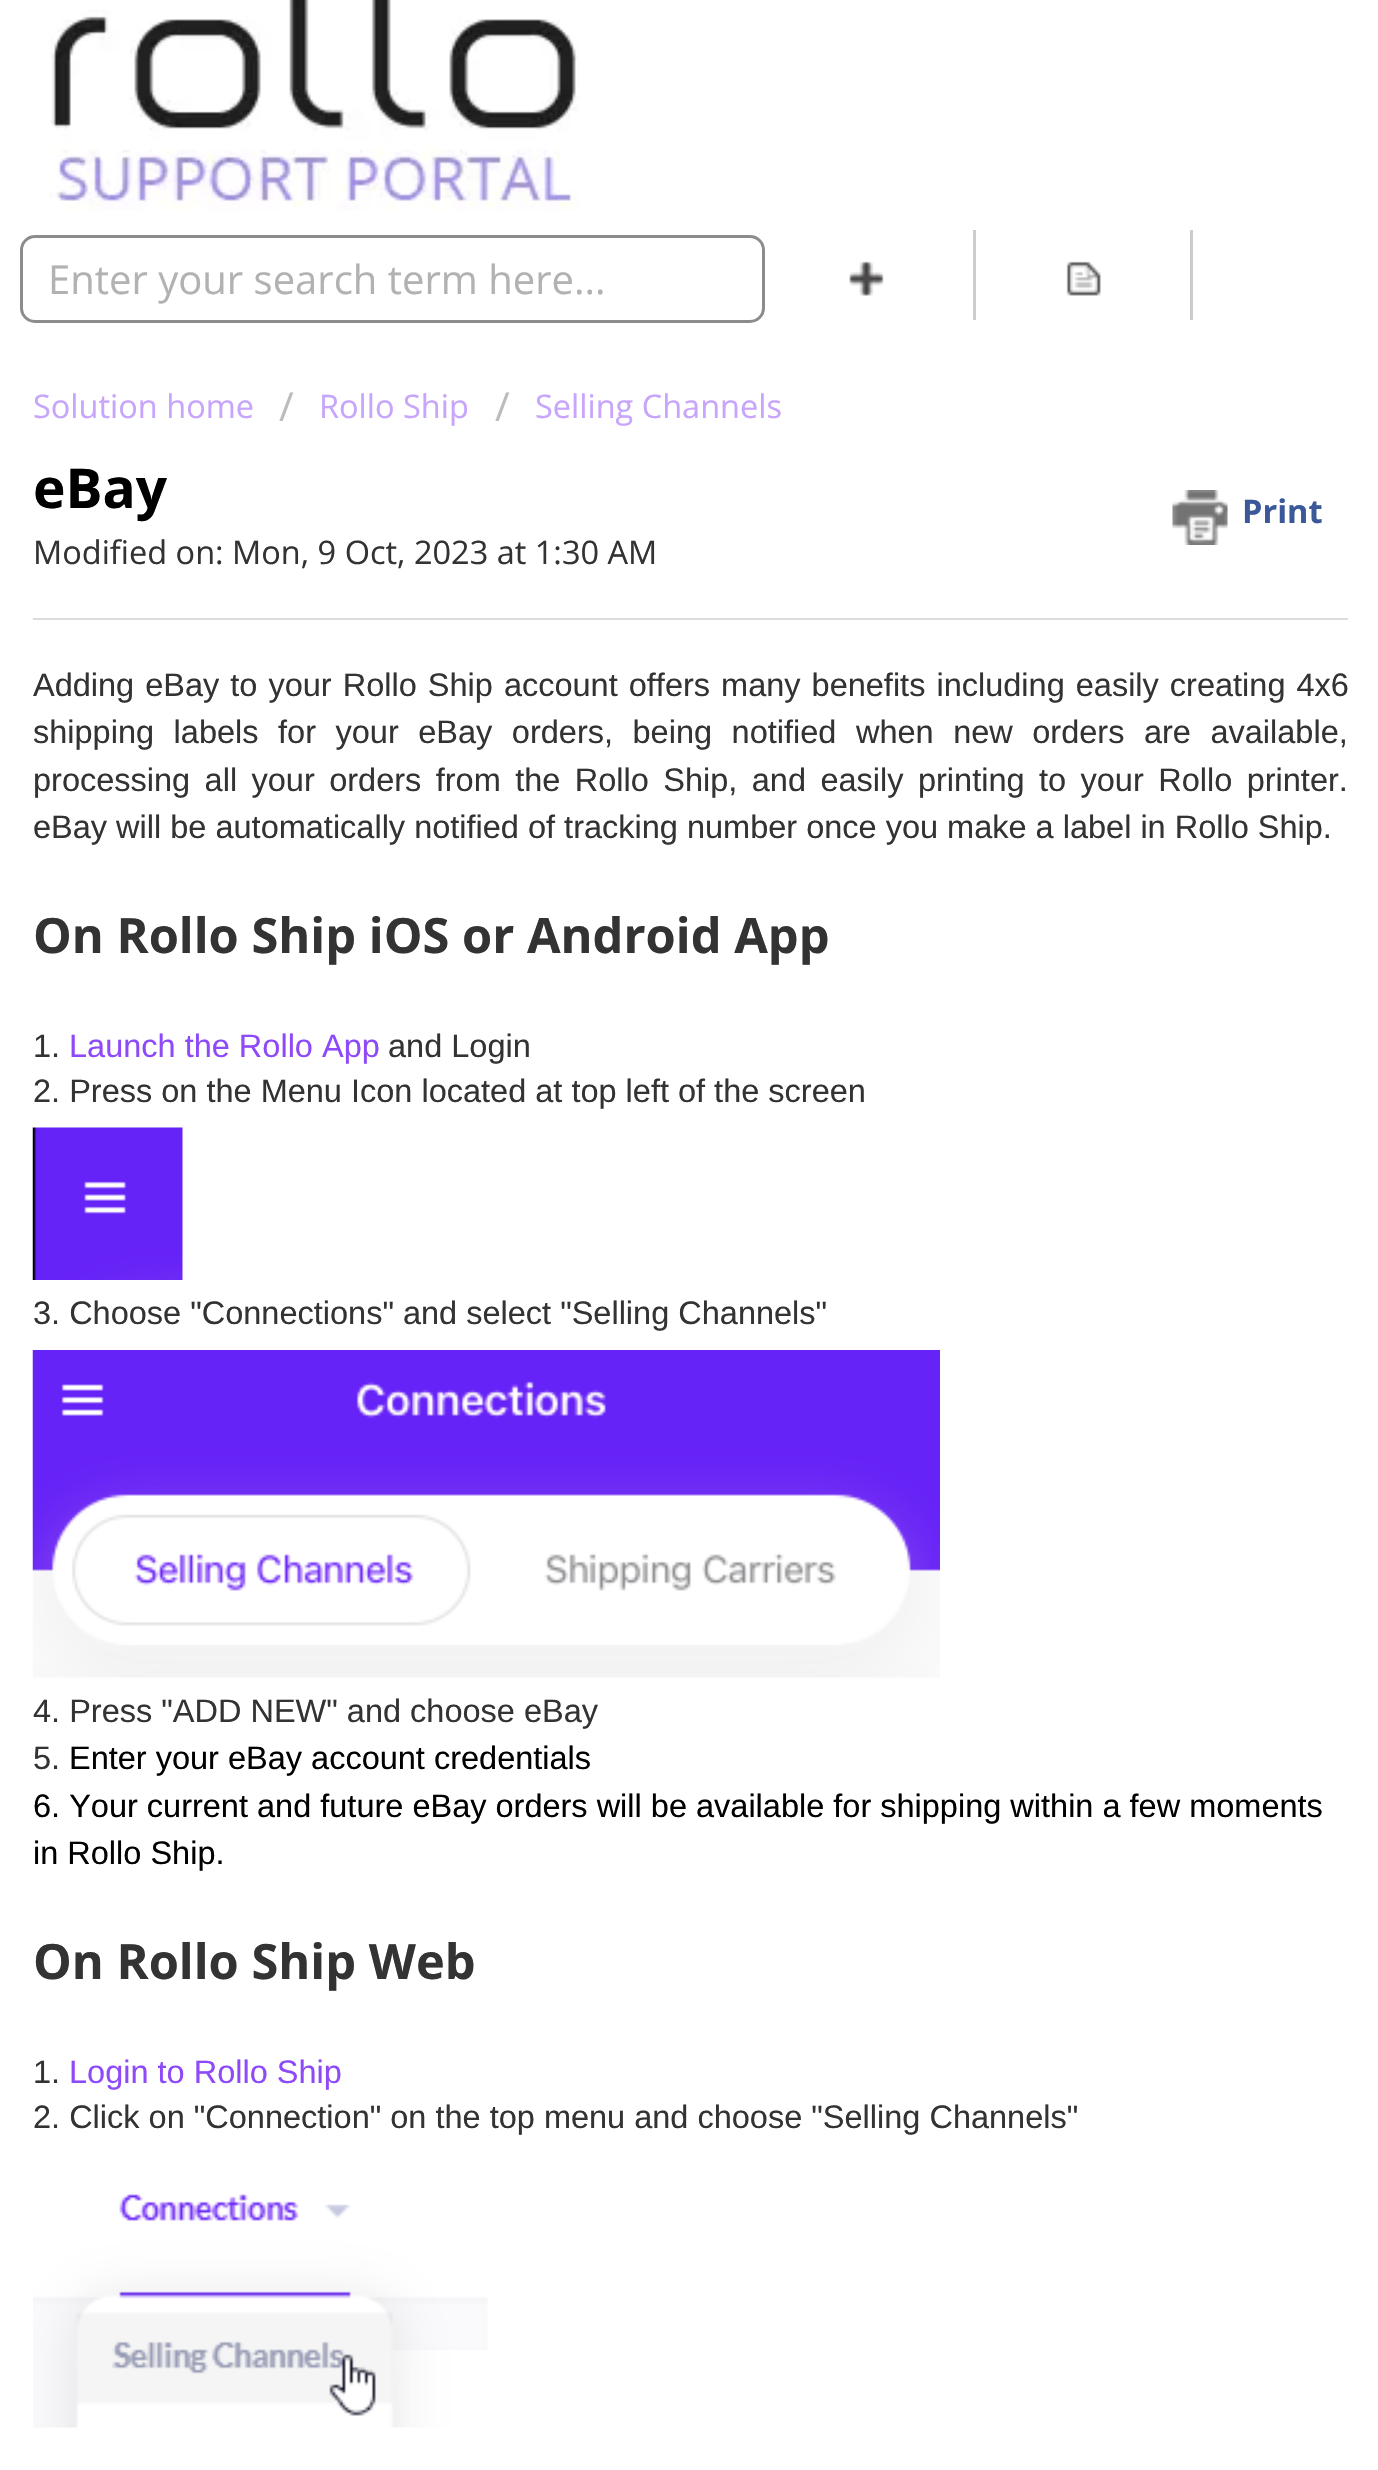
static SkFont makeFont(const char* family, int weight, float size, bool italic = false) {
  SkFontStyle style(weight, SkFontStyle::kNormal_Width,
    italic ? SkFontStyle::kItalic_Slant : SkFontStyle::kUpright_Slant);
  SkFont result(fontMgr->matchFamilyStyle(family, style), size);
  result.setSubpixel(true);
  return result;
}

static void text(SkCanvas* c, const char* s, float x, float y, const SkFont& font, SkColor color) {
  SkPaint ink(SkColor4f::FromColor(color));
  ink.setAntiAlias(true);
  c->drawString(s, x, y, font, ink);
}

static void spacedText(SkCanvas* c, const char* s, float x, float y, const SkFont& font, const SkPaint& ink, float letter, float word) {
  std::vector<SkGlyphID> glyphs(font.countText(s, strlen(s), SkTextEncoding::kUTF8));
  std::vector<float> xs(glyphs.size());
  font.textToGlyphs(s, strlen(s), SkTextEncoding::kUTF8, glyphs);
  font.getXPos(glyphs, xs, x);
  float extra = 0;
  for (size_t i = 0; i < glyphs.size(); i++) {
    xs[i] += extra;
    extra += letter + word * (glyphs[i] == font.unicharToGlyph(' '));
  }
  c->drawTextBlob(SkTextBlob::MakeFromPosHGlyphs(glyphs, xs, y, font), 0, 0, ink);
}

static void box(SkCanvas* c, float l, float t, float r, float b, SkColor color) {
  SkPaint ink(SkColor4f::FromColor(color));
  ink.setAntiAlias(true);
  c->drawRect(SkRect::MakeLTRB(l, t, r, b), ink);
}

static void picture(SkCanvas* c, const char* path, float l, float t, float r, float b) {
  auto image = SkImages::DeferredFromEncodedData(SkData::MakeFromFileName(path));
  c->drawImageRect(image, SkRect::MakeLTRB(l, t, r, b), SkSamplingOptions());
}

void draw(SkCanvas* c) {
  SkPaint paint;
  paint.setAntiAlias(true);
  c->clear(0xffffffff);
  picture(c, "img_01.png", 50, 0, 579, 211);
  paint.setStyle(SkPaint::kStroke_Style);
  paint.setStrokeWidth(3);
  paint.setColor(0xff8c8c8c);
  c->drawRoundRect(SkRect::MakeLTRB(21.5f, 236.5f, 763.5f, 321.5f), 13.5f, 13.5f, paint);
  SkFont face1 = makeFont("Open Sans", 400, 40);
  text(c, "Enter your search term here...", 48, 294, face1, 0xffb2b2b2);
  box(c, 973, 230, 976, 320, 0xffcccccc);
  picture(c, "img_02.png", 849, 261, 884, 296);
  box(c, 1190, 230, 1193, 320, 0xffcccccc);
  picture(c, "img_03.png", 1066, 261, 1101, 296);
  SkFont face2 = makeFont("Open Sans", 400, 32.5f);
  text(c, "Solution home", 33, 418, face2, 0xffc7a5fc);
  text(c, "/", 279, 421, face1, 0xffbbbbbb);
  text(c, "Rollo Ship", 319, 418, face2, 0xffc7a5fc);
  text(c, "/", 495, 421, face1, 0xffbbbbbb);
  text(c, "Selling Channels", 535, 418, face2, 0xffc7a5fc);
  SkFont face3 = makeFont("Open Sans", 700, 55);
  text(c, "eBay", 33, 508, face3, 0xff000000);
  picture(c, "img_04.png", 1172, 490, 1228, 545);
  SkFont face4 = makeFont("Open Sans", 700, 32.5f);
  text(c, "Print", 1242, 523, face4, 0xff3b5998);
  text(c, "Modified on: Mon, 9 Oct, 2023 at 1:30 AM", 33, 564, face2, 0xff333333);
  box(c, 33, 618, 1348, 620, 0xffdcdcdc);
  SkFont face5 = makeFont("Liberation Sans", 400, 32.5f);
  paint.setStyle(SkPaint::kFill_Style);
  paint.setColor(0xff333333);
  spacedText(c, "Adding eBay to your Rollo Ship account offers many benefits including easily creating 4x6", 33, 696, face5, paint, 0, 2);
  spacedText(c, "shipping labels for your eBay orders, being notified when new orders are available,", 33, 743, face5, paint, 0, 10.5f);
  spacedText(c, "processing all your orders from the Rollo Ship, and easily printing to your Rollo printer.", 33, 791, face5, paint, 0, 5.4f);
  text(c, "eBay will be automatically notified of tracking number once you make a label in Rollo Ship.", 33, 838, face5, 0xff333333);
  SkFont face6 = makeFont("Open Sans", 700, 48.75f);
  text(c, "On Rollo Ship iOS or Android App", 33, 953, face6, 0xff333333);
  text(c, "1.", 33, 1057, face5, 0xff333333);
  text(c, "Launch the Rollo App", 69, 1057, face5, 0xff8e4af9);
  text(c, "and Login", 388, 1057, face5, 0xff333333);
  text(c, "2. Press on the Menu Icon located at top left of the screen", 33, 1102, face5, 0xff333333);
  picture(c, "img_05.png", 32, 1127, 183, 1280);
  text(c, "3. Choose \"Connections\" and select \"Selling Channels\"", 33, 1324, face5, 0xff333333);
  picture(c, "img_06.png", 32, 1350, 940, 1678);
  text(c, "4. Press \"ADD NEW\" and choose eBay", 33, 1722, face5, 0xff333333);
  text(c, "5.", 33, 1769, face5, 0xff333333);
  text(c, "Enter your eBay account credentials", 69, 1769, face5, 0xff000000);
  text(c, "6. Your current and future eBay orders will be available for shipping within a few moments", 33, 1817, face5, 0xff000000);
  text(c, "in Rollo Ship.", 33, 1864, face5, 0xff000000);
  text(c, "On Rollo Ship Web", 33, 1979, face6, 0xff333333);
  text(c, "1.", 33, 2083, face5, 0xff333333);
  text(c, "Login to Rollo Ship", 69, 2083, face5, 0xff8e4af9);
  text(c, "2. Click on \"Connection\" on the top menu and choose \"Selling Channels\"", 33, 2128, face5, 0xff333333);
  picture(c, "img_07.png", 33, 2194, 488, 2428);
}
